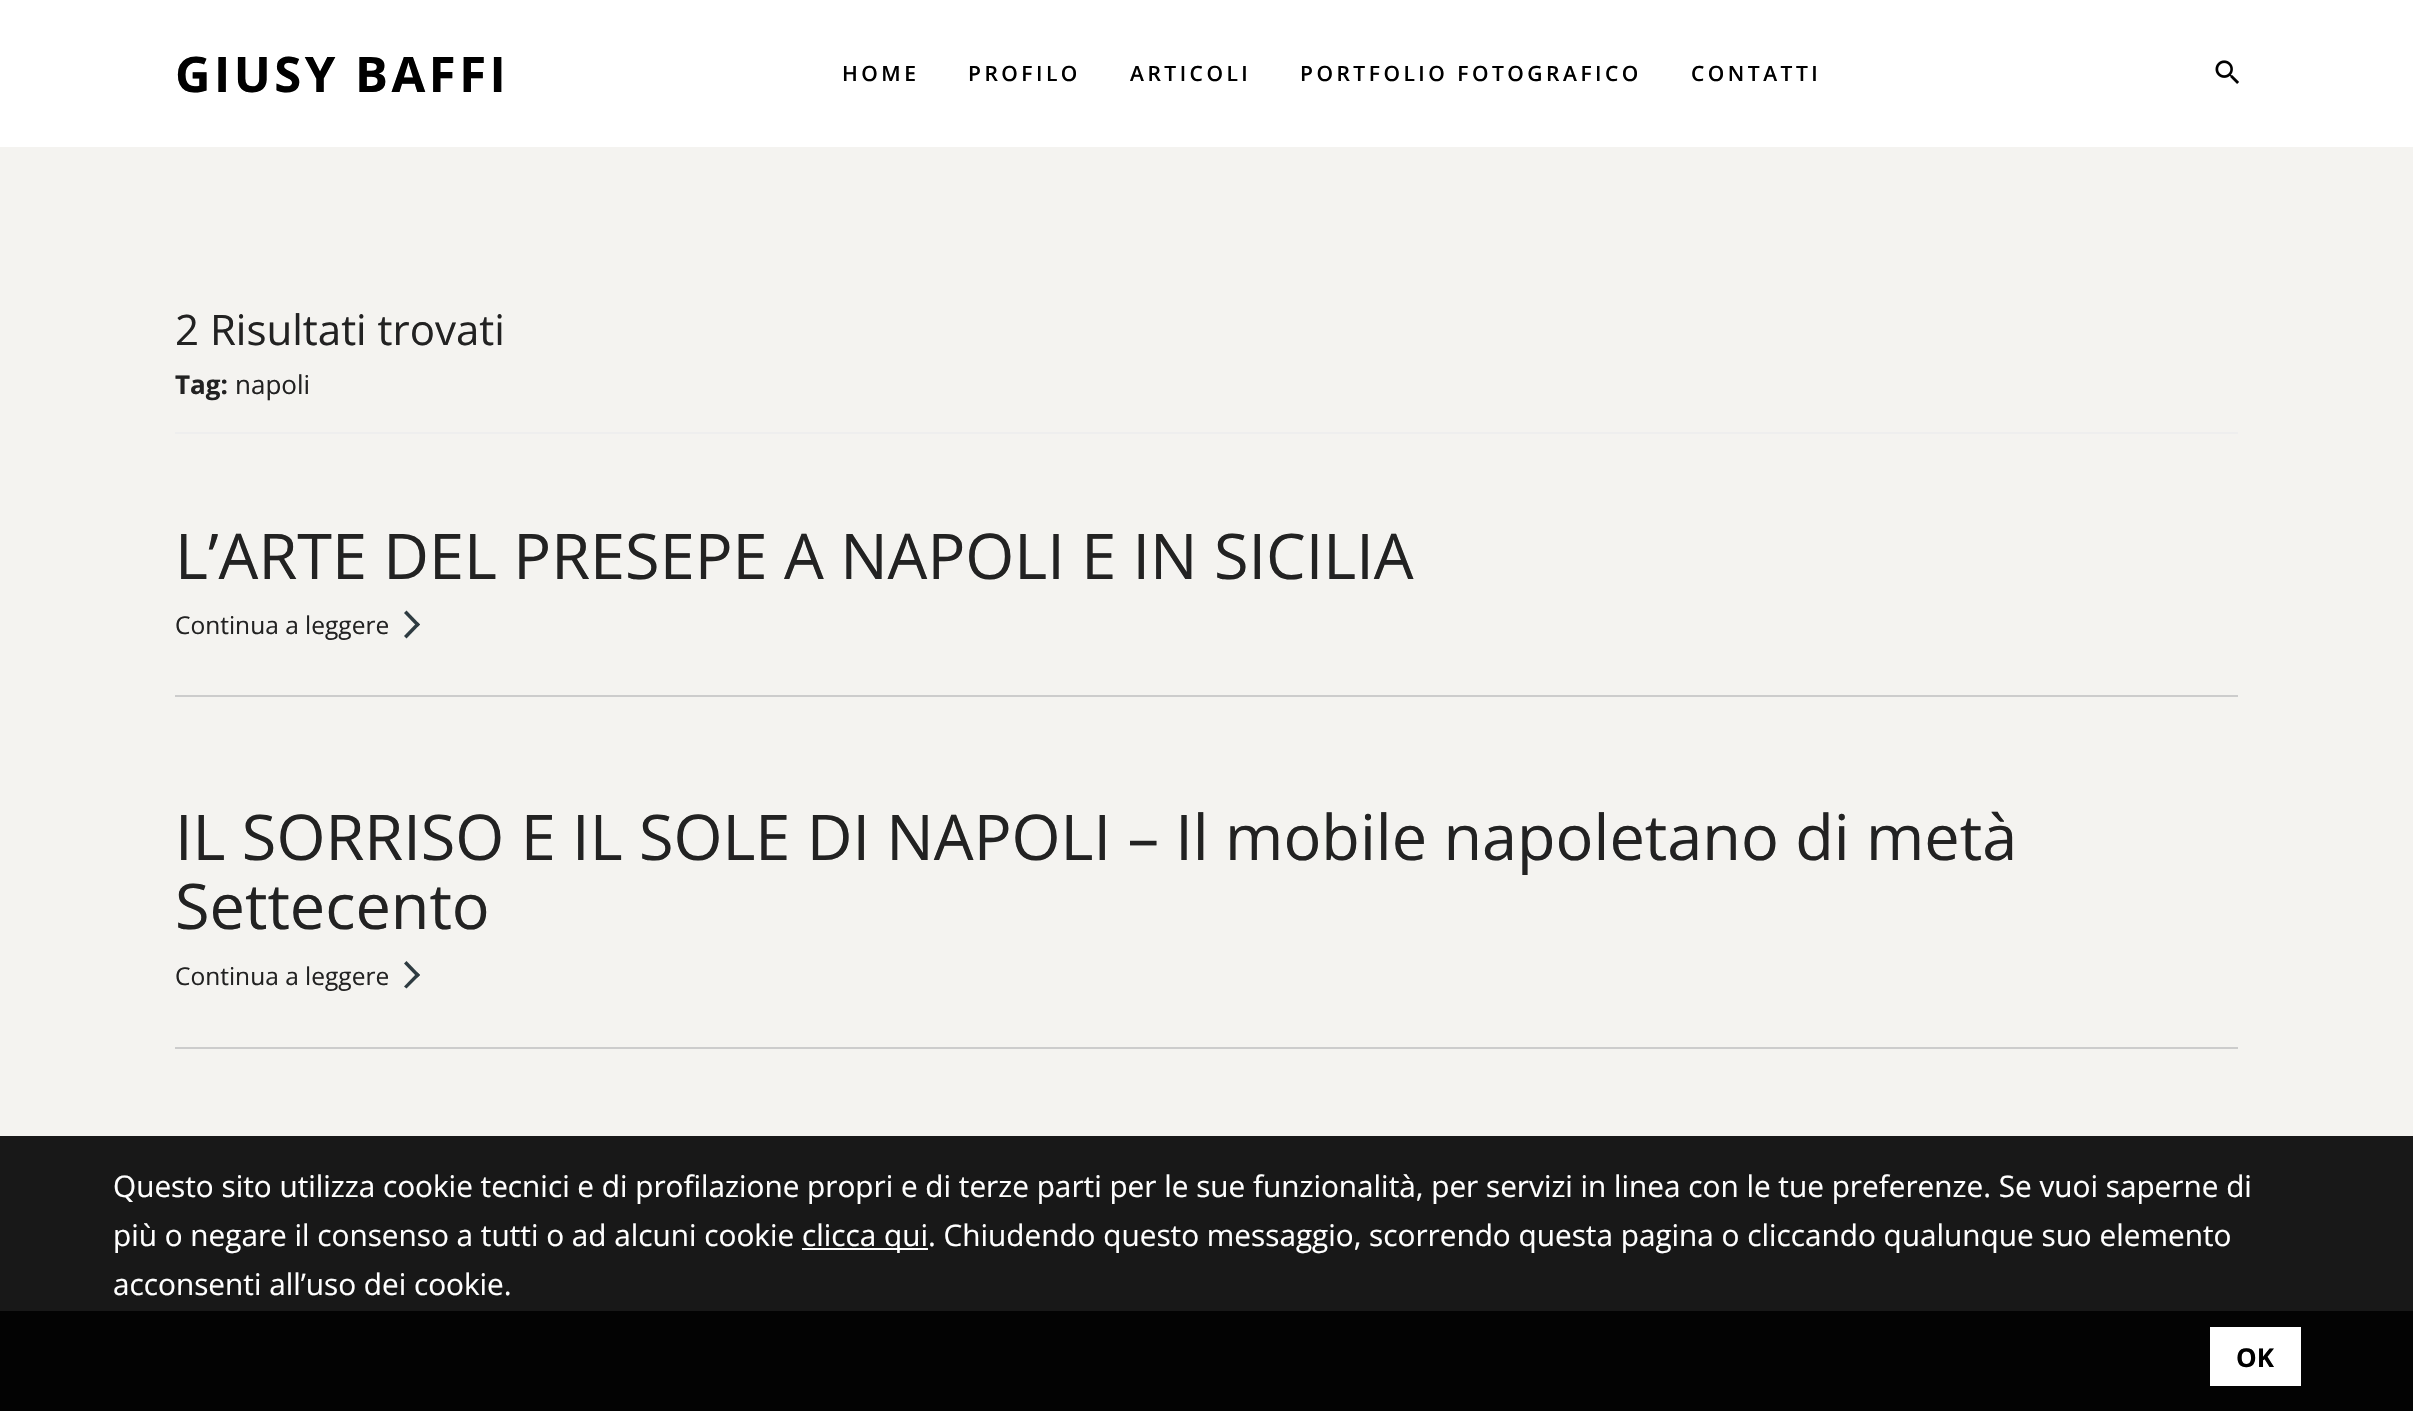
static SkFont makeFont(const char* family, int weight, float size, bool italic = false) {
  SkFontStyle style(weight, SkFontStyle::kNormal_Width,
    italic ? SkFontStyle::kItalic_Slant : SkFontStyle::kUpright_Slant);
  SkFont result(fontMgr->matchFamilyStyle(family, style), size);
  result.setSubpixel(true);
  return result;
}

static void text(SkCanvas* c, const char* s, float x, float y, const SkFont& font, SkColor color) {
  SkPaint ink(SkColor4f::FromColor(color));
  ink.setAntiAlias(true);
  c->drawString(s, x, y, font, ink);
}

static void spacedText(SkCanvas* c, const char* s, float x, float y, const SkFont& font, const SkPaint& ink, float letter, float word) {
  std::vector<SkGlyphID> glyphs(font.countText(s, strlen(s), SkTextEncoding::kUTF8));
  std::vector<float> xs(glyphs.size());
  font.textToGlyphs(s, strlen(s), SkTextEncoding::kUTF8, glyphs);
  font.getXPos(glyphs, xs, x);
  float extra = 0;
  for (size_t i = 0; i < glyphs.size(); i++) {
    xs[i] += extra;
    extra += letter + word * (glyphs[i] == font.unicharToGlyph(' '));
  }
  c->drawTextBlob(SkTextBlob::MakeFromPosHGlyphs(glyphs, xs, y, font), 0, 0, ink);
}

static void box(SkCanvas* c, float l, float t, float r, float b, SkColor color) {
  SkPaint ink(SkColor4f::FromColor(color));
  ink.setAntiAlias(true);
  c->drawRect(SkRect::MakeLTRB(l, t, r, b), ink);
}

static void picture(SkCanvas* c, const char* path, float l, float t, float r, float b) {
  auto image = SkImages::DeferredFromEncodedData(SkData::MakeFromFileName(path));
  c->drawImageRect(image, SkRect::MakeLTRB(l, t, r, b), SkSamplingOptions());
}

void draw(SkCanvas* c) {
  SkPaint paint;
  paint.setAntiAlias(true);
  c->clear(0xfff4f3f0);
  box(c, 0, 1136, 2413, 1311, 0xff181818);
  box(c, 0, 0, 2413, 147, 0xffffffff);
  SkFont face1 = makeFont("Open Sans", 700, 49);
  paint.setColor(0xff000000);
  spacedText(c, "GIUSY BAFFI", 175, 92, face1, paint, 3.5f, 0);
  SkFont face2 = makeFont("Open Sans", 600, 21);
  spacedText(c, "HOME", 842, 81, face2, paint, 3.5f, 0);
  spacedText(c, "PROFILO", 968, 81, face2, paint, 3.5f, 0);
  spacedText(c, "ARTICOLI", 1130, 81, face2, paint, 3.5f, 0);
  spacedText(c, "PORTFOLIO FOTOGRAFICO", 1300, 81, face2, paint, 3.5f, 0);
  spacedText(c, "CONTATTI", 1691, 81, face2, paint, 3.5f, 0);
  picture(c, "img_01.png", 2215, 60, 2239, 84);
  box(c, 175, 432, 2238, 434, 0xffeeeeee);
  SkFont face3 = makeFont("Open Sans", 400, 42);
  text(c, "2 Risultati trovati", 175, 345, face3, 0xff222222);
  SkFont face4 = makeFont("Open Sans", 700, 26);
  text(c, "Tag:", 175, 394, face4, 0xff222222);
  SkFont face5 = makeFont("Open Sans", 400, 26);
  text(c, "napoli", 235, 394, face5, 0xff222222);
  box(c, 175, 695, 2238, 697, 0xffcccccc);
  SkFont face6 = makeFont("Open Sans", 400, 63);
  text(c, "L’ARTE DEL PRESEPE A NAPOLI E IN SICILIA", 175, 579, face6, 0xff222222);
  SkFont face7 = makeFont("Open Sans", 400, 24.5f);
  text(c, "Continua a leggere", 175, 634, face7, 0xff222222);
  paint.setColor(0xff2e3b41);
  c->drawPath(SkPathBuilder().moveTo(406.5f, 610.5f).lineTo(420, 624.5f).lineTo(417.5f, 627).lineTo(404, 613).close().detach(), paint);
  c->drawPath(SkPathBuilder().moveTo(417.5f, 622).lineTo(420, 624.5f).lineTo(406.5f, 638.5f).lineTo(404, 636).close().detach(), paint);
  box(c, 175, 1047, 2238, 1049, 0xffcccccc);
  text(c, "IL SORRISO E IL SOLE DI NAPOLI – Il mobile napoletano di metà", 175, 860, face6, 0xff222222);
  text(c, "Settecento", 175, 929, face6, 0xff222222);
  text(c, "Continua a leggere", 175, 985, face7, 0xff222222);
  c->drawPath(SkPathBuilder().moveTo(406.5f, 961).lineTo(420, 975).lineTo(417.5f, 977.5f).lineTo(404, 963.5f).close().detach(), paint);
  c->drawPath(SkPathBuilder().moveTo(417.5f, 972.5f).lineTo(420, 975).lineTo(406.5f, 988.5f).lineTo(404, 986.5f).close().detach(), paint);
  box(c, 0, 1311, 2413, 1411, 0xff030303);
  SkFont face8 = makeFont("Open Sans", 400, 29.75f);
  text(c, "Questo sito utilizza cookie tecnici e di profilazione propri e di terze parti per le sue funzionalità, per servizi in linea con le tue preferenze. Se vuoi saperne di", 113, 1197, face8, 0xffffffff);
  text(c, "più o negare il consenso a tutti o ad alcuni cookie", 113, 1246, face8, 0xffffffff);
  box(c, 802, 1248, 928, 1250, 0xffffffff);
  text(c, "clicca qui. Chiudendo questo messaggio, scorrendo questa pagina o cliccando qualunque suo elemento", 802, 1246, face8, 0xffffffff);
  text(c, "acconsenti all’uso dei cookie.", 113, 1295, face8, 0xffffffff);
  box(c, 2210, 1327, 2301, 1386, 0xffffffff);
  text(c, "OK", 2236, 1367, face4, 0xff000000);
}
